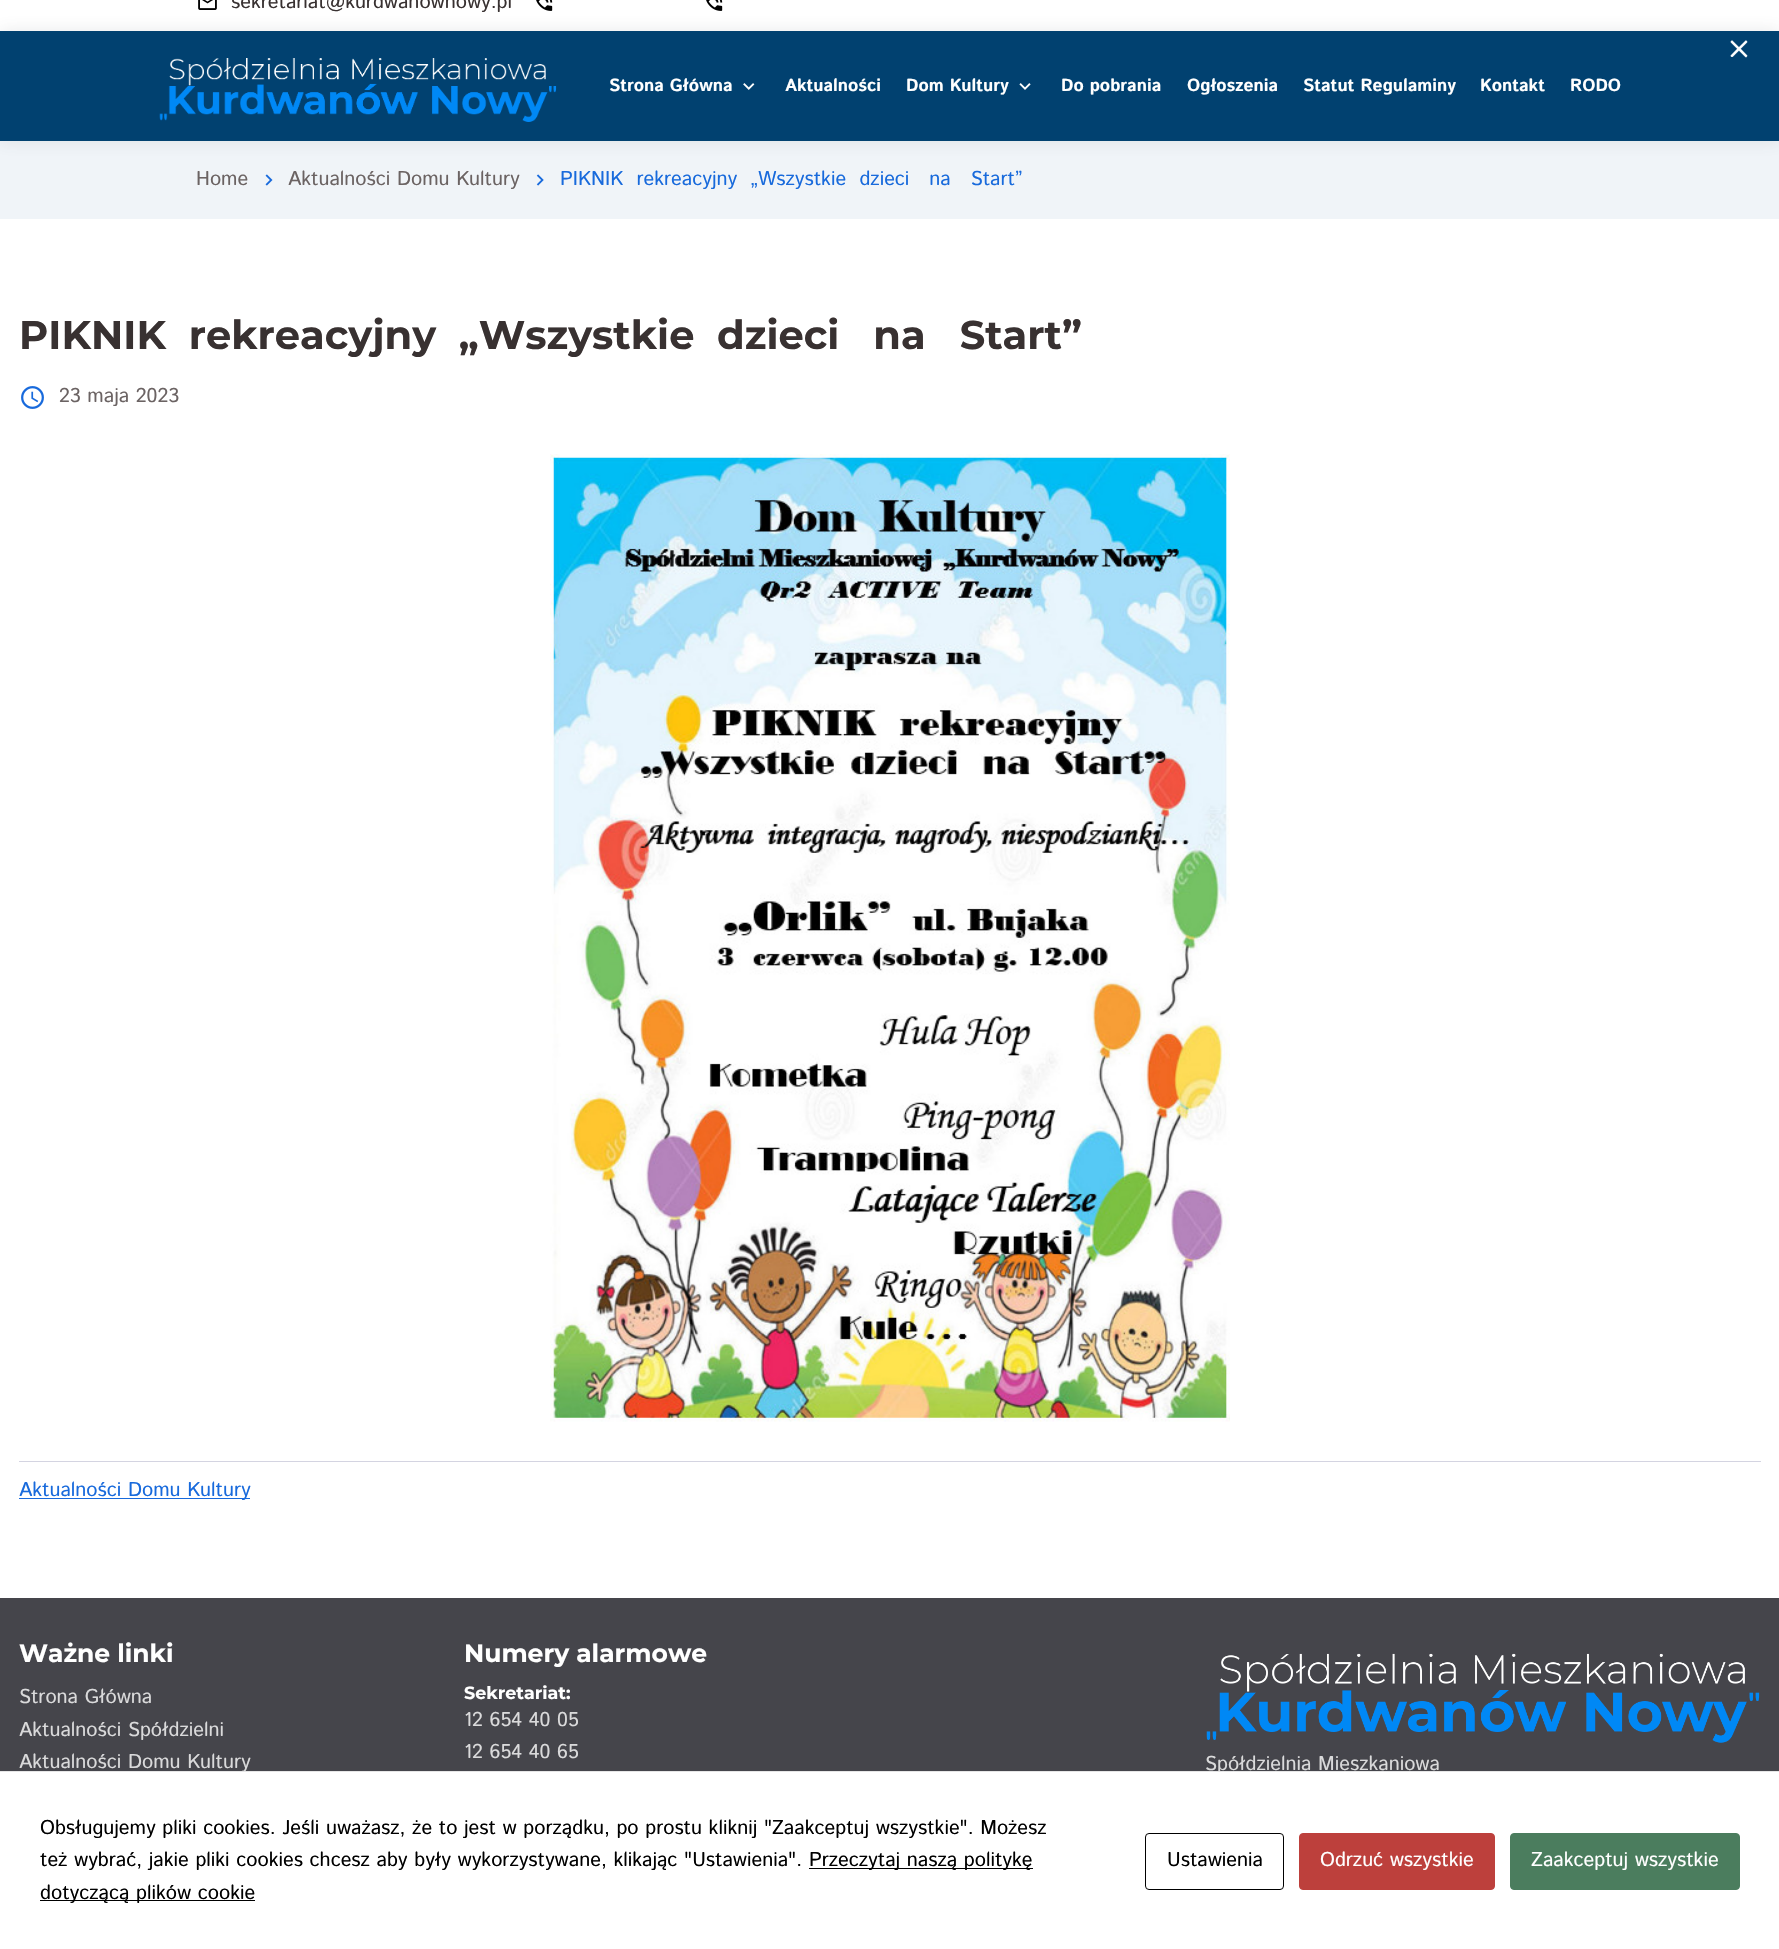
static SkFont makeFont(const char* family, int weight, float size, bool italic = false) {
  SkFontStyle style(weight, SkFontStyle::kNormal_Width,
    italic ? SkFontStyle::kItalic_Slant : SkFontStyle::kUpright_Slant);
  SkFont result(fontMgr->matchFamilyStyle(family, style), size);
  result.setSubpixel(true);
  return result;
}

static void text(SkCanvas* c, const char* s, float x, float y, const SkFont& font, SkColor color) {
  SkPaint ink(SkColor4f::FromColor(color));
  ink.setAntiAlias(true);
  c->drawString(s, x, y, font, ink);
}

static void box(SkCanvas* c, float l, float t, float r, float b, SkColor color) {
  SkPaint ink(SkColor4f::FromColor(color));
  ink.setAntiAlias(true);
  c->drawRect(SkRect::MakeLTRB(l, t, r, b), ink);
}

static void picture(SkCanvas* c, const char* path, float l, float t, float r, float b) {
  auto image = SkImages::DeferredFromEncodedData(SkData::MakeFromFileName(path));
  c->drawImageRect(image, SkRect::MakeLTRB(l, t, r, b), SkSamplingOptions());
}

void draw(SkCanvas* c) {
  SkPaint paint;
  paint.setAntiAlias(true);
  c->clear(0xffffffff);
  picture(c, "img_01.png", 198, 0, 217, 10);
  SkFont face1 = makeFont("Istok Web", 400, 20);
  text(c, "sekretariat@kurdwanownowy.pl", 231, 8, face1, 0xff383131);
  picture(c, "img_02.png", 536, 0, 553, 11);
  picture(c, "img_02.png", 706, 0, 723, 11);
  box(c, 0, 141, 1779, 219, 0xfff0f4f8);
  paint.setColor(0x214d525e);
  paint.setMaskFilter(SkMaskFilter::MakeBlur(kNormal_SkBlurStyle, 8));
  c->drawRect(SkRect::MakeLTRB(0, 31, 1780, 141), paint);
  paint.setMaskFilter(nullptr);
  box(c, 0, 31, 1779, 141, 0xff014170);
  picture(c, "img_03.png", 159, 58, 557, 122);
  SkFont face2 = makeFont("Istok Web", 700, 17.5f);
  text(c, "Strona Główna", 609, 91, face2, 0xffffffff);
  picture(c, "img_04.png", 743, 83, 755, 90);
  text(c, "Aktualności", 785, 91, face2, 0xffffffff);
  text(c, "Dom Kultury", 906, 91, face2, 0xffffffff);
  picture(c, "img_05.png", 1019, 83, 1031, 90);
  text(c, "Do pobrania", 1061, 91, face2, 0xffffffff);
  text(c, "Ogłoszenia", 1187, 91, face2, 0xffffffff);
  text(c, "Statut Regulaminy", 1303, 91, face2, 0xffffffff);
  text(c, "Kontakt", 1480, 91, face2, 0xffffffff);
  text(c, "RODO", 1570, 91, face2, 0xffffffff);
  text(c, "Home", 196, 185, face1, 0xff6b6363);
  picture(c, "img_06.png", 265, 174, 273, 186);
  text(c, "Aktualności Domu Kultury", 288, 185, face1, 0xff6b6363);
  picture(c, "img_07.png", 536, 174, 544, 186);
  text(c, "PIKNIK  rekreacyjny  „Wszystkie  dzieci   na   Start”", 560, 185, face1, 0xff186adc);
  SkFont face3 = makeFont("Montserrat", 700, 40);
  text(c, "PIKNIK  rekreacyjny  „Wszystkie  dzieci   na   Start”", 19, 349, face3, 0xff383131);
  picture(c, "img_08.png", 21, 386, 44, 409);
  text(c, "23 maja 2023", 59, 402, face1, 0xff6b6363);
  picture(c, "img_09.png", 550, 454, 1230, 1422);
  box(c, 19, 1461, 1761, 1462, 0xffd4d4e1);
  box(c, 19, 1498, 250, 1499, 0xff186adc);
  text(c, "Aktualności Domu Kultury", 19, 1496, face1, 0xff186adc);
  box(c, 0, 1598, 1779, 1771, 0xff45454b);
  SkFont face4 = makeFont("Montserrat", 700, 25);
  text(c, "Ważne linki", 19, 1662, face4, 0xffffffff);
  text(c, "Strona Główna", 19, 1703, face1, 0xffdadadb);
  text(c, "Aktualności Spółdzielni", 19, 1736, face1, 0xffdadadb);
  text(c, "Aktualności Domu Kultury", 19, 1768, face1, 0xffdadadb);
  text(c, "Numery alarmowe", 464, 1662, face4, 0xffffffff);
  SkFont face5 = makeFont("Montserrat", 700, 17.5f);
  text(c, "Sekretariat:", 464, 1699, face5, 0xffffffff);
  text(c, "12 654 40 05", 464, 1726, face1, 0xffdadadb);
  text(c, "12 654 40 65", 464, 1758, face1, 0xffdadadb);
  picture(c, "img_10.png", 1206, 1653, 1760, 1743);
  text(c, "Spółdzielnia Mieszkaniowa", 1205, 1770, face1, 0xffdadadb);
  SkFont face6 = makeFont("Istok Web", 400, 40);
  text(c, "×", 1726, 63, face6, 0xffffffff);
  box(c, 1218, 1772, 1221, 1774, 0xffffffff);
  box(c, 0, 1771, 1779, 1772, 0xffe6e6e6);
  text(c, "Obsługujemy pliki cookies. Jeśli uważasz, że to jest w porządku, po prostu kliknij \"Zaakceptuj wszystkie\". Możesz", 40, 1834, face1, 0xff000000);
  text(c, "też wybrać, jakie pliki cookies chcesz aby były wykorzystywane, klikając \"Ustawienia\".", 40, 1866, face1, 0xff000000);
  box(c, 809, 1868, 1033, 1869, 0xff000000);
  text(c, "Przeczytaj naszą politykę", 809, 1866, face1, 0xff000000);
  box(c, 40, 1900, 255, 1901, 0xff000000);
  text(c, "dotyczącą plików cookie", 40, 1899, face1, 0xff000000);
  paint.setStyle(SkPaint::kStroke_Style);
  paint.setStrokeWidth(1);
  paint.setColor(0xff000000);
  c->drawRoundRect(SkRect::MakeLTRB(1145.5f, 1833.5f, 1283.5f, 1889.5f), 3.5f, 3.5f, paint);
  text(c, "Ustawienia", 1167, 1866, face1, 0xff000000);
  paint.setStyle(SkPaint::kFill_Style);
  paint.setColor(0xffbd403c);
  c->drawRoundRect(SkRect::MakeLTRB(1299.5f, 1833.5f, 1494.5f, 1889.5f), 3.5f, 3.5f, paint);
  paint.setStyle(SkPaint::kStroke_Style);
  c->drawRoundRect(SkRect::MakeLTRB(1299.5f, 1833.5f, 1494.5f, 1889.5f), 3.5f, 3.5f, paint);
  text(c, "Odrzuć wszystkie", 1320, 1866, face1, 0xffffffff);
  paint.setStyle(SkPaint::kFill_Style);
  paint.setColor(0xff4b7d5e);
  c->drawRoundRect(SkRect::MakeLTRB(1510.5f, 1833.5f, 1739.5f, 1889.5f), 3.5f, 3.5f, paint);
  paint.setStyle(SkPaint::kStroke_Style);
  c->drawRoundRect(SkRect::MakeLTRB(1510.5f, 1833.5f, 1739.5f, 1889.5f), 3.5f, 3.5f, paint);
  text(c, "Zaakceptuj wszystkie", 1531, 1866, face1, 0xffffffff);
}
